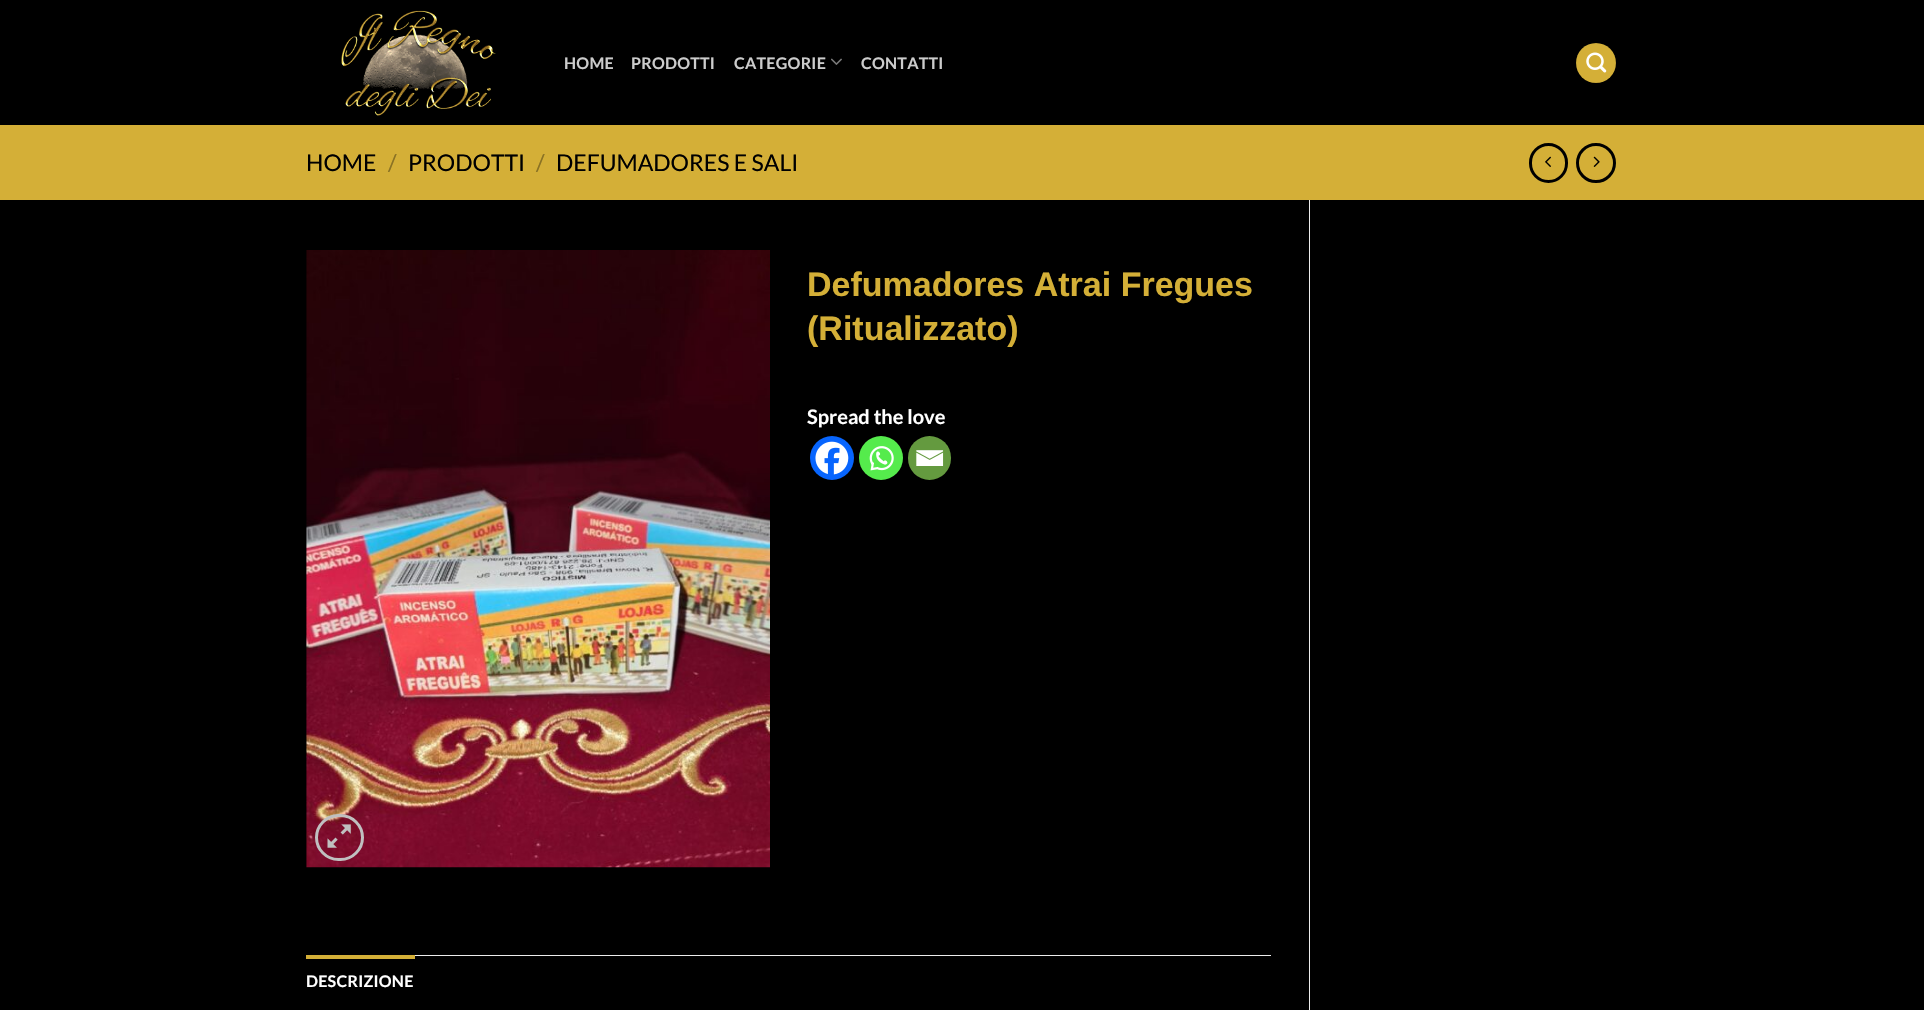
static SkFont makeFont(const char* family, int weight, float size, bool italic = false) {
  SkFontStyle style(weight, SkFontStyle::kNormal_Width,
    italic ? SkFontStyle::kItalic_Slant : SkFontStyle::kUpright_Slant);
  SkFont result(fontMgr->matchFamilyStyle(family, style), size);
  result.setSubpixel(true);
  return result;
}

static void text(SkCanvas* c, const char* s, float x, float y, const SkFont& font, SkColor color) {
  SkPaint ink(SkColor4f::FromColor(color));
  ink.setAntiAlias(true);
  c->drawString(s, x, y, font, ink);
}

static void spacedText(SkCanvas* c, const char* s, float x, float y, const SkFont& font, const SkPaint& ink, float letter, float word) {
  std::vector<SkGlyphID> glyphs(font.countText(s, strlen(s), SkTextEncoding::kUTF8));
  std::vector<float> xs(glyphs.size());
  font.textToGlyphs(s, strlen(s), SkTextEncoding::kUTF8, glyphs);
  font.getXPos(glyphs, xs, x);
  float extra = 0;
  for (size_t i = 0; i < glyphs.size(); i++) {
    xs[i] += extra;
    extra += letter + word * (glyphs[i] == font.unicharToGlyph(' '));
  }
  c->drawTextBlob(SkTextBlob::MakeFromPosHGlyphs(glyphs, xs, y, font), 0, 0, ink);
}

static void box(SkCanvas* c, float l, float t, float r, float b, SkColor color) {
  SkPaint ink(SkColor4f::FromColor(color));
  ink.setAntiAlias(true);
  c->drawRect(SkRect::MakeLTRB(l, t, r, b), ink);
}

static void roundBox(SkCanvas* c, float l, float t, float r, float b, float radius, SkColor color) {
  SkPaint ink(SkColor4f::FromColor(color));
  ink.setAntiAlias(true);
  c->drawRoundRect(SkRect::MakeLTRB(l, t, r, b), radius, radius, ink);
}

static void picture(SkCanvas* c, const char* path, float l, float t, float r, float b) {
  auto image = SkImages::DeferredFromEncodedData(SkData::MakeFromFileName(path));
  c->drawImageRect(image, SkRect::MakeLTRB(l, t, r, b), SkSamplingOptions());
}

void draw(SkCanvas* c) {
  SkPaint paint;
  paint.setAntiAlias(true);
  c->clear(0xff000000);
  picture(c, "img_01.png", 341, 10, 496, 116);
  SkFont face1 = makeFont("Lato", 700, 16);
  paint.setColor(0xffcccccc);
  spacedText(c, "HOME", 564, 69, face1, paint, 0.25f, 0);
  spacedText(c, "PRODOTTI", 631, 69, face1, paint, 0.25f, 0);
  spacedText(c, "CATEGORIE", 734, 69, face1, paint, 0.25f, 0);
  picture(c, "img_02.png", 831, 58, 842, 65);
  spacedText(c, "CONTATTI", 861, 69, face1, paint, 0.25f, 0);
  paint.setColor(0xffd4af37);
  c->drawCircle(1596, 63, 20, paint);
  paint.setStyle(SkPaint::kStroke_Style);
  paint.setStrokeWidth(1);
  paint.setColor(0x0d000000);
  c->drawRect(SkRect::MakeLTRB(1576.5f, 43.5f, 1615.5f, 82.5f), paint);
  picture(c, "img_03.png", 1586, 52, 1607, 73);
  box(c, 0, 125, 1924, 200, 0xffd4af37);
  SkFont face2 = makeFont("Lato", 400, 23);
  text(c, "HOME", 306, 171, face2, 0xff000000);
  text(c, "/", 388, 171, face2, 0xff8a7224);
  text(c, "PRODOTTI", 408, 171, face2, 0xff000000);
  text(c, "/", 536, 171, face2, 0xff8a7224);
  text(c, "DEFUMADORES E SALI", 556, 171, face2, 0xff000000);
  paint.setStrokeWidth(3);
  paint.setColor(0xff000000);
  c->drawRoundRect(SkRect::MakeLTRB(1530.5f, 144.5f, 1566.5f, 181.5f), 18, 18, paint);
  picture(c, "img_04.png", 1545, 156, 1551, 167);
  c->drawCircle(1596, 163, 18.5f, paint);
  picture(c, "img_05.png", 1593, 156, 1600, 167);
  box(c, 1309, 200, 1310, 1010, 0xffececec);
  picture(c, "img_06.png", 306, 250, 770, 868);
  paint.setColor(0xffc0c0c0);
  c->drawRoundRect(SkRect::MakeLTRB(316.5f, 815.5f, 362.5f, 859.5f), 22, 22, paint);
  picture(c, "img_07.png", 327, 824, 351, 848);
  SkFont face3 = makeFont("Liberation Sans", 700, 34);
  text(c, "Defumadores Atrai Fregues", 807, 296, face3, 0xffd4af37);
  text(c, "(Ritualizzato)", 807, 340, face3, 0xffd4af37);
  SkFont face4 = makeFont("Lato", 700, 20);
  text(c, "Spread the love", 807, 424, face4, 0xffffffff);
  paint.setStyle(SkPaint::kFill_Style);
  paint.setColor(0xff0765fe);
  c->drawCircle(832, 458, 22, paint);
  picture(c, "img_08.png", 815, 441, 849, 475);
  paint.setColor(0xff55eb4c);
  c->drawCircle(881, 458, 22, paint);
  picture(c, "img_09.png", 869, 446, 894, 471);
  roundBox(c, 908, 436, 951, 480, 21.5f, 0xff649a3f);
  picture(c, "img_10.png", 916, 450, 944, 466);
  box(c, 415, 955, 1271, 956, 0xffececec);
  box(c, 306, 955, 415, 959, 0xffd4af37);
  paint.setColor(0xffffffff);
  spacedText(c, "DESCRIZIONE", 306, 987, face1, paint, 0.25f, 0);
}
